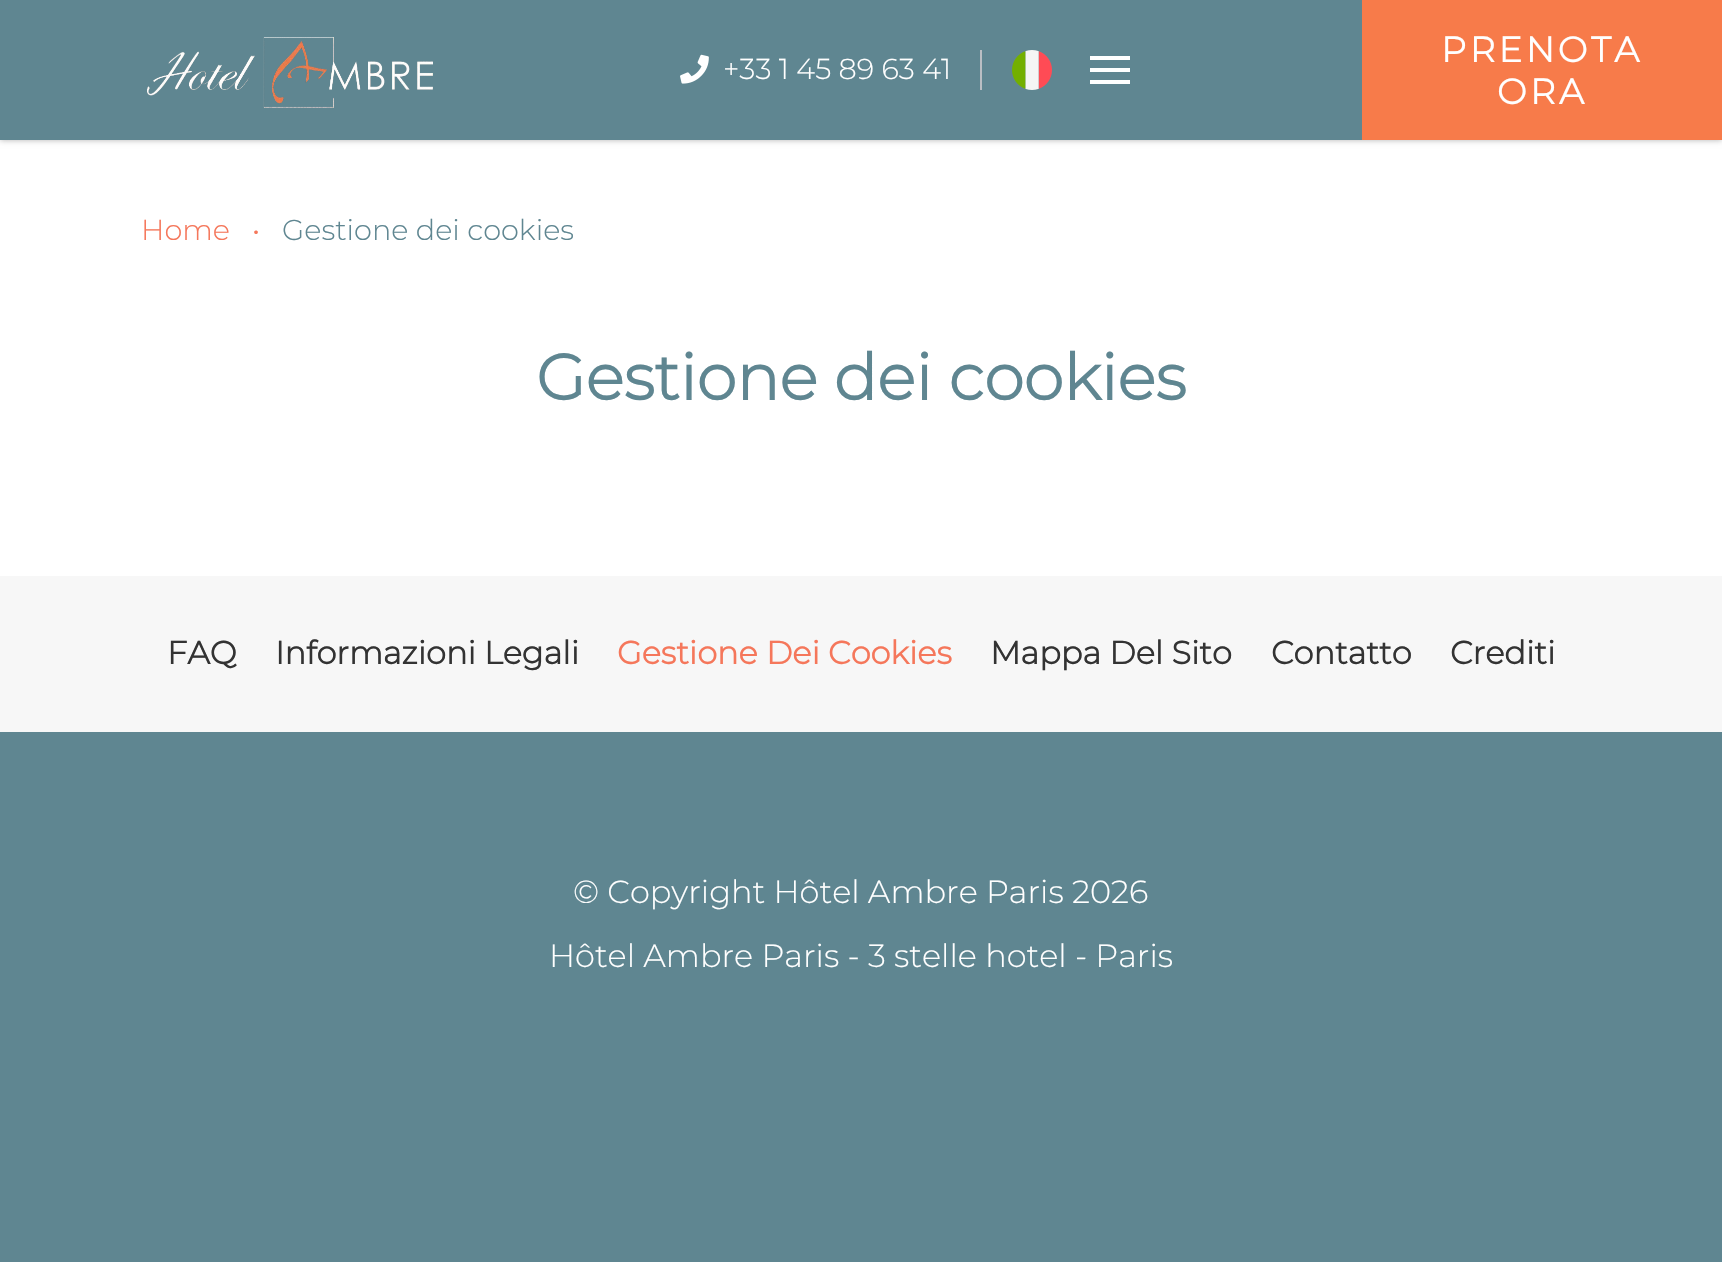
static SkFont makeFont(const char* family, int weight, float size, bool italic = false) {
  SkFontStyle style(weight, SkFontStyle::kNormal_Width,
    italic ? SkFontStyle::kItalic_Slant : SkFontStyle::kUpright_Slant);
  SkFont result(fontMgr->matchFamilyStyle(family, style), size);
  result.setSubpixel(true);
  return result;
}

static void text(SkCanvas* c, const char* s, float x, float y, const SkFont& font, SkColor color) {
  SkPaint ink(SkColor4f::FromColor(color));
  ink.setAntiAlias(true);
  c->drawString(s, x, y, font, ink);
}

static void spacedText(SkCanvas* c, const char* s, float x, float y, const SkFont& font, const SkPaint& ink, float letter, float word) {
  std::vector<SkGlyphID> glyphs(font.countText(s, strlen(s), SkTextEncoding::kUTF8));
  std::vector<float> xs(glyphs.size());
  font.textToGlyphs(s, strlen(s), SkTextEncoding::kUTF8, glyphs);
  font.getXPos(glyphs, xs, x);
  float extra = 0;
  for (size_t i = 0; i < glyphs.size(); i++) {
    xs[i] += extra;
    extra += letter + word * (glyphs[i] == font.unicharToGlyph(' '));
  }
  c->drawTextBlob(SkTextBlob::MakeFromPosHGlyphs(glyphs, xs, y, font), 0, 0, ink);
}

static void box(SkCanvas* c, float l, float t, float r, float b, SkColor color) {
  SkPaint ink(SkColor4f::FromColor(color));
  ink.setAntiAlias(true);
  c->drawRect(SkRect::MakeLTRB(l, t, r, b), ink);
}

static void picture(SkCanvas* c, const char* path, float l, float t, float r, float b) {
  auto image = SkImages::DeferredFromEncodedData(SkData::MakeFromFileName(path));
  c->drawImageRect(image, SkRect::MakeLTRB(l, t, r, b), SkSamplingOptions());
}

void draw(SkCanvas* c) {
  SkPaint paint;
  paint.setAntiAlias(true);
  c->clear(0xff5f8691);
  box(c, 0, 140, 1722, 576, 0xffffffff);
  paint.setColor(0x4d000000);
  paint.setMaskFilter(SkMaskFilter::MakeBlur(kNormal_SkBlurStyle, 3));
  c->drawRect(SkRect::MakeLTRB(0, 0, 1722, 140), paint);
  paint.setMaskFilter(nullptr);
  box(c, 0, 0, 1362, 140, 0xff5f8691);
  picture(c, "img_01.png", 147, 37, 433, 108);
  picture(c, "img_02.png", 680, 54, 709, 84);
  SkFont face1 = makeFont("Montserrat", 100, 28.75f);
  text(c, "+33 1 45 89 63 41", 723, 79, face1, 0xffffffff);
  box(c, 980, 50, 982, 90, 0xffbabec3);
  picture(c, "img_03.png", 1012, 50, 1052, 90);
  box(c, 1090, 56, 1130, 60, 0xffffffff);
  box(c, 1090, 80, 1130, 84, 0xffffffff);
  box(c, 1090, 68, 1130, 72, 0xffffffff);
  box(c, 1362, 0, 1722, 140, 0xfff77b4a);
  SkFont face2 = makeFont("Montserrat", 700, 35.25f);
  paint.setColor(0xffffffff);
  spacedText(c, "PRENOTA", 1441, 62, face2, paint, 3.5f, 0);
  spacedText(c, "ORA", 1497, 104, face2, paint, 3.5f, 0);
  text(c, "Home", 141, 240, face1, 0xfff5775b);
  text(c, "•", 252, 240, face1, 0xfff5775b);
  text(c, "Gestione dei cookies", 282, 240, face1, 0xff5f8691);
  SkFont face3 = makeFont("Montserrat", 700, 64);
  text(c, "Gestione dei cookies", 536, 400, face3, 0xff5f8691);
  box(c, 0, 576, 1722, 732, 0xfff7f7f7);
  SkFont face4 = makeFont("Montserrat", 700, 32);
  text(c, "FAQ", 167, 664, face4, 0xff333333);
  text(c, "Informazioni Legali", 275, 664, face4, 0xff333333);
  text(c, "Gestione Dei Cookies", 617, 664, face4, 0xfff5775b);
  text(c, "Mappa Del Sito", 990, 664, face4, 0xff333333);
  text(c, "Contatto", 1271, 664, face4, 0xff333333);
  text(c, "Crediti", 1450, 664, face4, 0xff333333);
  SkFont face5 = makeFont("Montserrat", 100, 32);
  text(c, "© Copyright Hôtel Ambre Paris 2026", 573, 903, face5, 0xffffffff);
  text(c, "Hôtel Ambre Paris - 3 stelle hotel - Paris", 549, 967, face5, 0xffffffff);
}
